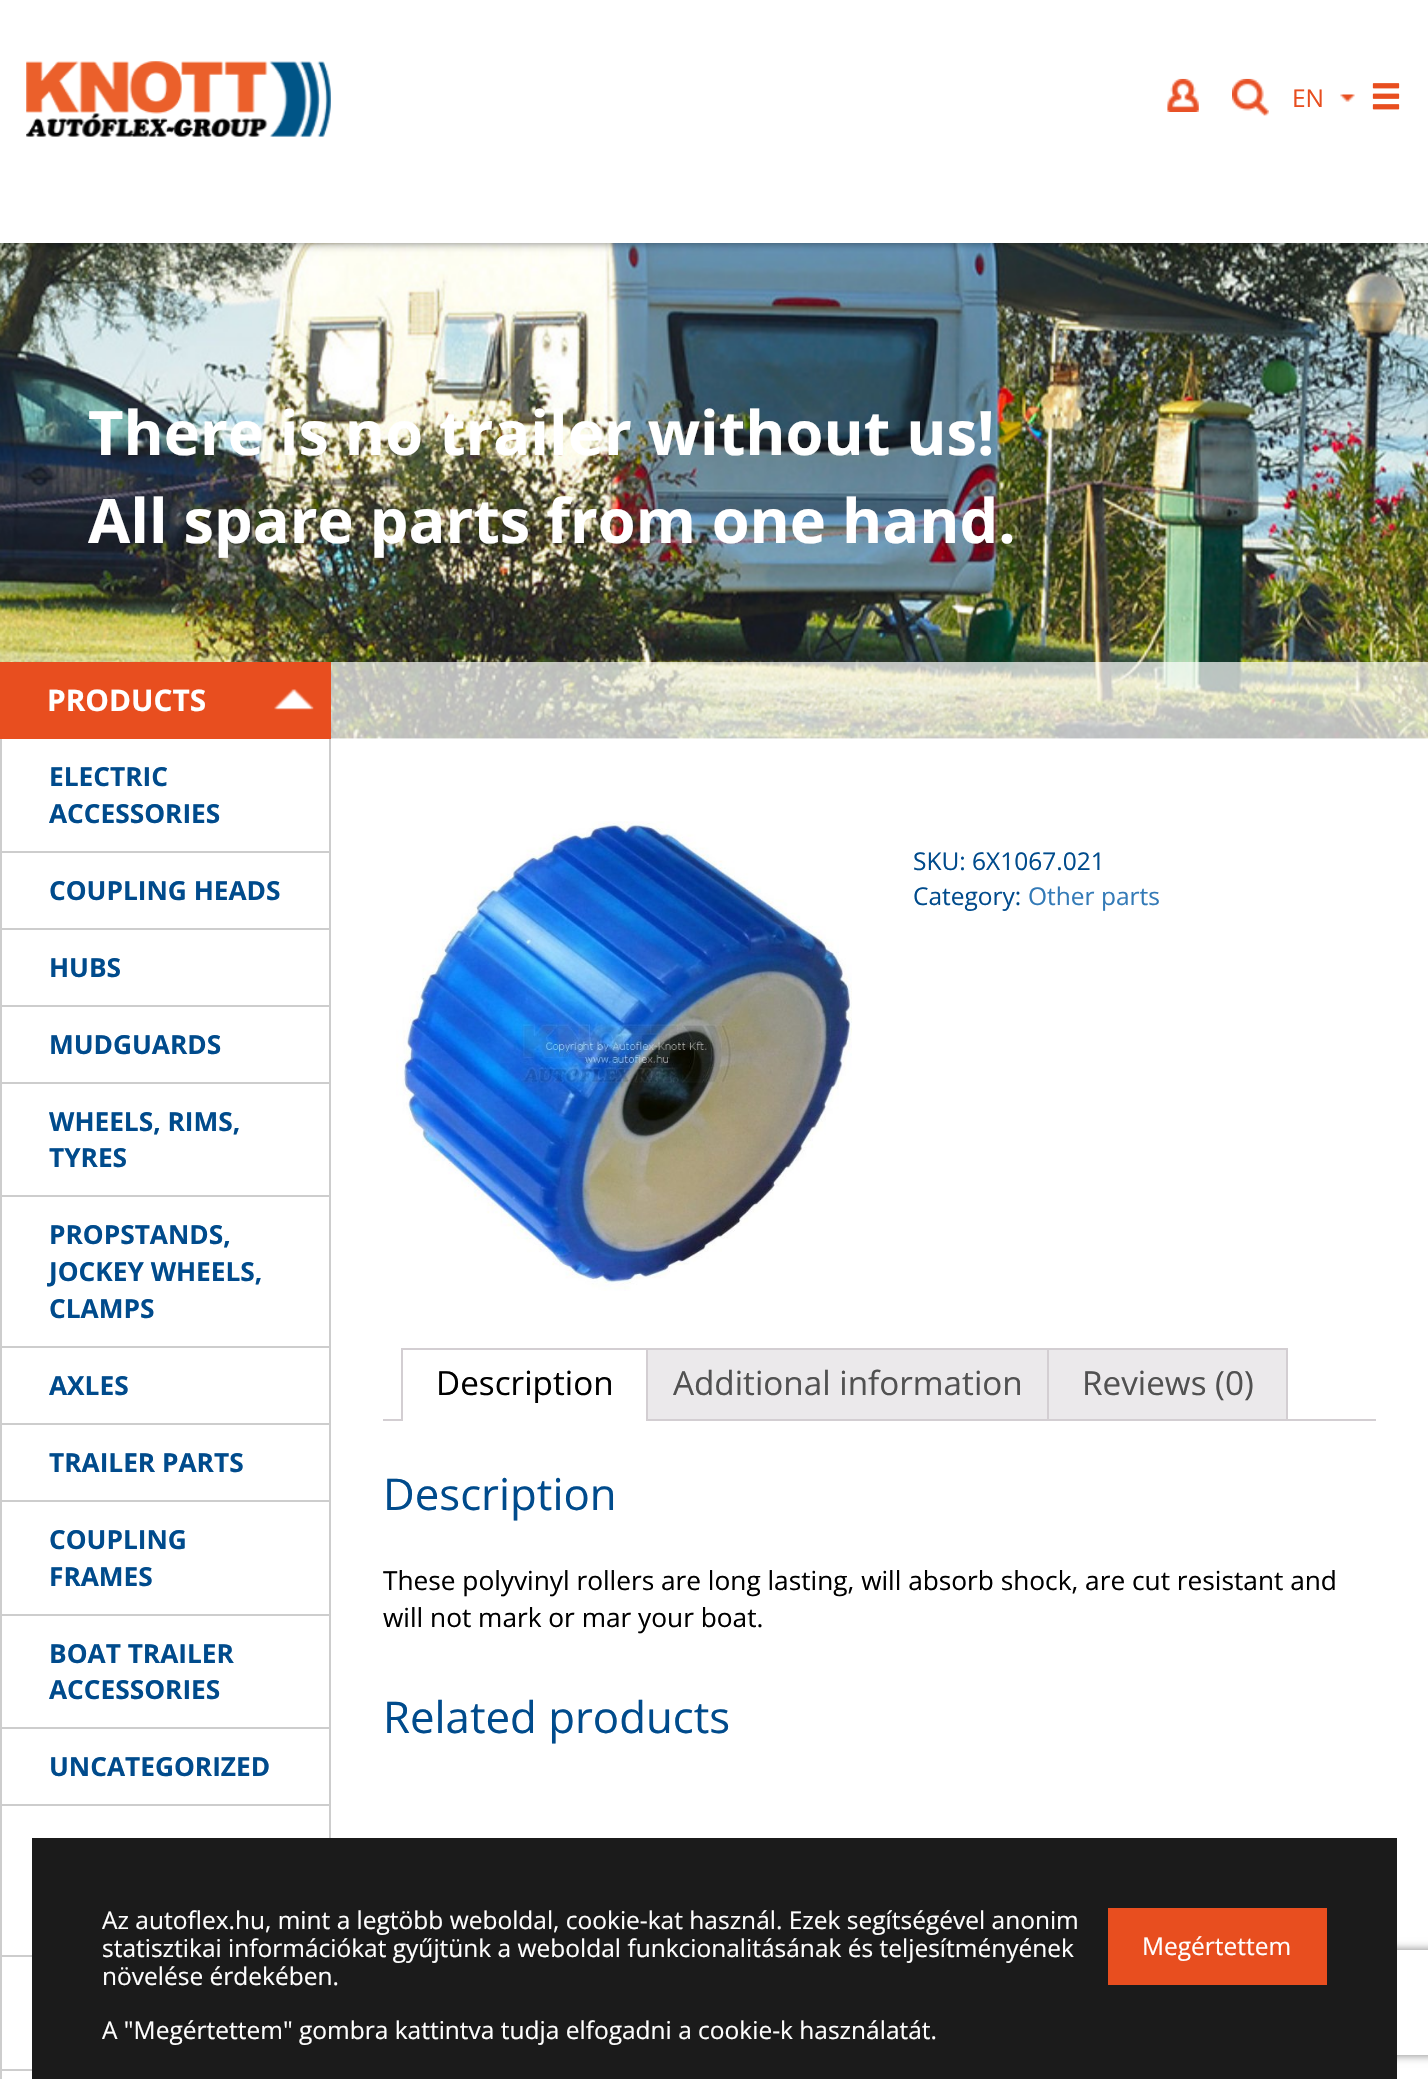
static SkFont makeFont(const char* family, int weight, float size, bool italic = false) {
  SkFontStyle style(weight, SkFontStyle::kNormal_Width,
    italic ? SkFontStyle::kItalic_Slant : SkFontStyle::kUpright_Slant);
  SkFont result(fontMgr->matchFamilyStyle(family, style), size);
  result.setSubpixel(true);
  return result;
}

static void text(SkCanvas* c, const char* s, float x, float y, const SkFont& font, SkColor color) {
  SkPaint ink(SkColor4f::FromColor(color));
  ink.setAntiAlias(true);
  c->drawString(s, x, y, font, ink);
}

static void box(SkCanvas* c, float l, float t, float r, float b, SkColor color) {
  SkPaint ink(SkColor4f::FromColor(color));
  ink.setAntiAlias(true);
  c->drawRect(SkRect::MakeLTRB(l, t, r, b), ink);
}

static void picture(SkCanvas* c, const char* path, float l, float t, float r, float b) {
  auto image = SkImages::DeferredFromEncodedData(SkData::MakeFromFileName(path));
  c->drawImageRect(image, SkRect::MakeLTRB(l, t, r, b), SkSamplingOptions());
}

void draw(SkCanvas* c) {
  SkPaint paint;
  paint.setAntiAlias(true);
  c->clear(0xffffffff);
  picture(c, "img_06.png", 0, 243, 1428, 739);
  paint.setColor(0x80000000);
  paint.setMaskFilter(SkMaskFilter::MakeBlur(kNormal_SkBlurStyle, 4.5f));
  c->drawRect(SkRect::MakeLTRB(0, 0, 1428, 243), paint);
  paint.setMaskFilter(nullptr);
  box(c, 0, 0, 1428, 243, 0xffffffff);
  picture(c, "img_01.png", 26, 61, 331, 137);
  picture(c, "img_02.png", 1167, 78, 1199, 112);
  picture(c, "img_03.png", 1232, 78, 1269, 116);
  picture(c, "img_04.png", 1340, 94, 1355, 102);
  SkFont face1 = makeFont("Open Sans", 400, 24.5f);
  text(c, "EN", 1292, 107, face1, 0xffe84e1f);
  picture(c, "img_05.png", 1372, 83, 1400, 110);
  SkFont face2 = makeFont("Open Sans", 700, 61.25f);
  text(c, "There is no trailer without us!", 88, 455, face2, 0xffffffff);
  text(c, "All spare parts from one hand.", 88, 543, face2, 0xffffffff);
  box(c, 331, 662, 1428, 739, 0xb3ffffff);
  box(c, 0, 662, 331, 739, 0xffe84e1f);
  SkFont face3 = makeFont("Open Sans", 700, 29.75f);
  text(c, "PRODUCTS", 47, 711, face3, 0xffffffff);
  picture(c, "img_07.png", 274, 689, 314, 710);
  box(c, 329, 739, 331, 852, 0xffcdcdcd);
  box(c, 0, 851, 331, 853, 0xffcdcdcd);
  box(c, 0, 739, 2, 852, 0xffcdcdcd);
  SkFont face4 = makeFont("Open Sans", 700, 26.25f);
  text(c, "ELECTRIC", 49, 786, face4, 0xff004b8c);
  text(c, "ACCESSORIES", 49, 823, face4, 0xff004b8c);
  box(c, 329, 852, 331, 929, 0xffcdcdcd);
  box(c, 0, 928, 331, 930, 0xffcdcdcd);
  box(c, 0, 852, 2, 929, 0xffcdcdcd);
  text(c, "COUPLING HEADS", 49, 900, face4, 0xff004b8c);
  box(c, 329, 929, 331, 1006, 0xffcdcdcd);
  box(c, 0, 1005, 331, 1007, 0xffcdcdcd);
  box(c, 0, 929, 2, 1006, 0xffcdcdcd);
  text(c, "HUBS", 49, 977, face4, 0xff004b8c);
  box(c, 329, 1006, 331, 1083, 0xffcdcdcd);
  box(c, 0, 1082, 331, 1084, 0xffcdcdcd);
  box(c, 0, 1006, 2, 1083, 0xffcdcdcd);
  text(c, "MUDGUARDS", 49, 1054, face4, 0xff004b8c);
  box(c, 329, 1083, 331, 1615, 0xffcdcdcd);
  box(c, 0, 1195, 331, 1197, 0xffcdcdcd);
  box(c, 0, 1083, 2, 1197, 0xffcdcdcd);
  text(c, "WHEELS, RIMS,", 49, 1131, face4, 0xff004b8c);
  text(c, "TYRES", 49, 1167, face4, 0xff004b8c);
  box(c, 0, 1346, 331, 1348, 0xffcdcdcd);
  box(c, 0, 1197, 2, 1348, 0xffcdcdcd);
  text(c, "PROPSTANDS,", 49, 1244, face4, 0xff004b8c);
  text(c, "JOCKEY WHEELS,", 49, 1281, face4, 0xff004b8c);
  text(c, "CLAMPS", 49, 1318, face4, 0xff004b8c);
  box(c, 0, 1423, 331, 1425, 0xffcdcdcd);
  box(c, 0, 1348, 2, 1425, 0xffcdcdcd);
  text(c, "AXLES", 49, 1395, face4, 0xff004b8c);
  box(c, 0, 1500, 331, 1502, 0xffcdcdcd);
  box(c, 0, 1425, 2, 1502, 0xffcdcdcd);
  text(c, "TRAILER PARTS", 49, 1472, face4, 0xff004b8c);
  box(c, 0, 1614, 331, 1616, 0xffcdcdcd);
  box(c, 0, 1502, 2, 1615, 0xffcdcdcd);
  text(c, "COUPLING", 49, 1549, face4, 0xff004b8c);
  text(c, "FRAMES", 49, 1586, face4, 0xff004b8c);
  box(c, 329, 1615, 331, 1838, 0xffcdcdcd);
  box(c, 0, 1727, 331, 1729, 0xffcdcdcd);
  box(c, 0, 1615, 2, 1729, 0xffcdcdcd);
  text(c, "BOAT TRAILER", 49, 1663, face4, 0xff004b8c);
  text(c, "ACCESSORIES", 49, 1699, face4, 0xff004b8c);
  box(c, 0, 1804, 331, 1806, 0xffcdcdcd);
  box(c, 0, 1729, 2, 1806, 0xffcdcdcd);
  text(c, "UNCATEGORIZED", 49, 1776, face4, 0xff004b8c);
  box(c, 0, 1955, 32, 1957, 0xffcdcdcd);
  box(c, 0, 1806, 2, 1957, 0xffcdcdcd);
  box(c, 0, 2069, 32, 2071, 0xffcdcdcd);
  box(c, 0, 1957, 2, 2079, 0xffcdcdcd);
  picture(c, "img_08.png", 396, 821, 852, 1291);
  text(c, "SKU: 6X1067.021", 913, 870, face1, 0xff004b8c);
  text(c, "Category:", 913, 905, face1, 0xff004b8c);
  text(c, "Other parts", 1028, 905, face1, 0xff337ab7);
  box(c, 648, 1350, 1047, 1419, 0xffebe9eb);
  paint.setStyle(SkPaint::kStroke_Style);
  paint.setStrokeWidth(2);
  paint.setColor(0xffd3ced2);
  c->drawRect(SkRect::MakeLTRB(638, 1349, 1056, 1420), paint);
  box(c, 637, 1350, 639, 1419, 0xffffffff);
  box(c, 401, 1348, 637, 1350, 0xffd3ced2);
  paint.setStyle(SkPaint::kFill_Style);
  paint.setColor(0xffebe9eb);
  c->drawRect(SkRect::MakeLTRB(1048, 1349, 1287, 1420), paint);
  paint.setStyle(SkPaint::kStroke_Style);
  paint.setColor(0xffd3ced2);
  c->drawRect(SkRect::MakeLTRB(1048, 1349, 1287, 1420), paint);
  c->save();
  c->clipRect(SkRect::MakeLTRB(383, 1348, 1376, 1421));
  paint.setStyle(SkPaint::kFill_Style);
  paint.setColor(0xffebe9eb);
  c->drawPath(SkPathBuilder().moveTo(1043, 1421).lineTo(1043, 1425).lineTo(1052, 1425).lineTo(1052, 1416).lineTo(1048, 1416).lineTo(1048, 1421).close().detach(), paint);
  c->restore();
  box(c, 1048, 1412, 1049, 1421, 0xffd3ced2);
  c->save();
  c->clipRect(SkRect::MakeLTRB(383, 1348, 1376, 1421));
  c->drawPath(SkPathBuilder().moveTo(1283, 1416).lineTo(1283, 1425).lineTo(1292, 1425).lineTo(1292, 1421).lineTo(1286, 1421).lineTo(1286, 1416).close().detach(), paint);
  c->restore();
  box(c, 383, 1419, 1376, 1421, 0xffd3ced2);
  box(c, 646, 1348, 648, 1421, 0xffd3ced2);
  box(c, 401, 1419, 648, 1421, 0xffffffff);
  box(c, 401, 1348, 403, 1421, 0xffd3ced2);
  SkFont face5 = makeFont("Open Sans", 400, 33.25f);
  text(c, "Description", 436, 1395, face5, 0xff000000);
  box(c, 646, 1419, 655, 1421, 0xffd3ced2);
  text(c, "Additional information", 673, 1395, face5, 0xff515151);
  text(c, "Reviews (0)", 1082, 1395, face5, 0xff515151);
  SkFont face6 = makeFont("Open Sans", 400, 43.75f);
  text(c, "Description", 383, 1510, face6, 0xff004b8c);
  SkFont face7 = makeFont("Open Sans", 400, 26.25f);
  text(c, "These polyvinyl rollers are long lasting, will absorb shock, are cut resistant and", 383, 1590, face7, 0xff000000);
  text(c, "will not mark or mar your boat.", 383, 1627, face7, 0xff000000);
  text(c, "Related products", 383, 1733, face6, 0xff004b8c);
  c->save();
  c->clipPath(SkPathBuilder(SkPathFillType::kEvenOdd).moveTo(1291, 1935).lineTo(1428, 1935).lineTo(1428, 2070).lineTo(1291, 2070).close().moveTo(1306, 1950).lineTo(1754, 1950).lineTo(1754, 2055).lineTo(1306, 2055).close().detach(), true);
  paint.setColor(0xff808080);
  paint.setMaskFilter(SkMaskFilter::MakeBlur(kNormal_SkBlurStyle, 4.5f));
  c->drawRect(SkRect::MakeLTRB(1306, 1950, 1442, 2055), paint);
  paint.setMaskFilter(nullptr);
  c->restore();
  box(c, 32, 1838, 1397, 2079, 0xff1b1b1b);
  text(c, "Az autoflex.hu, mint a legtöbb weboldal, cookie-kat használ. Ezek segítségével anonim", 102, 1929, face1, 0xffffffff);
  text(c, "statisztikai információkat gyűjtünk a weboldal funkcionalitásának és teljesítményének", 102, 1957, face1, 0xffffffff);
  text(c, "növelése érdekében.", 102, 1985, face1, 0xffffffff);
  box(c, 1108, 1908, 1327, 1985, 0xffe84e1f);
  text(c, "Megértettem", 1142, 1955, face1, 0xffffffff);
  text(c, "A \"Megértettem\" gombra kattintva tudja elfogadni a cookie-k használatát.", 102, 2039, face1, 0xffffffff);
}
